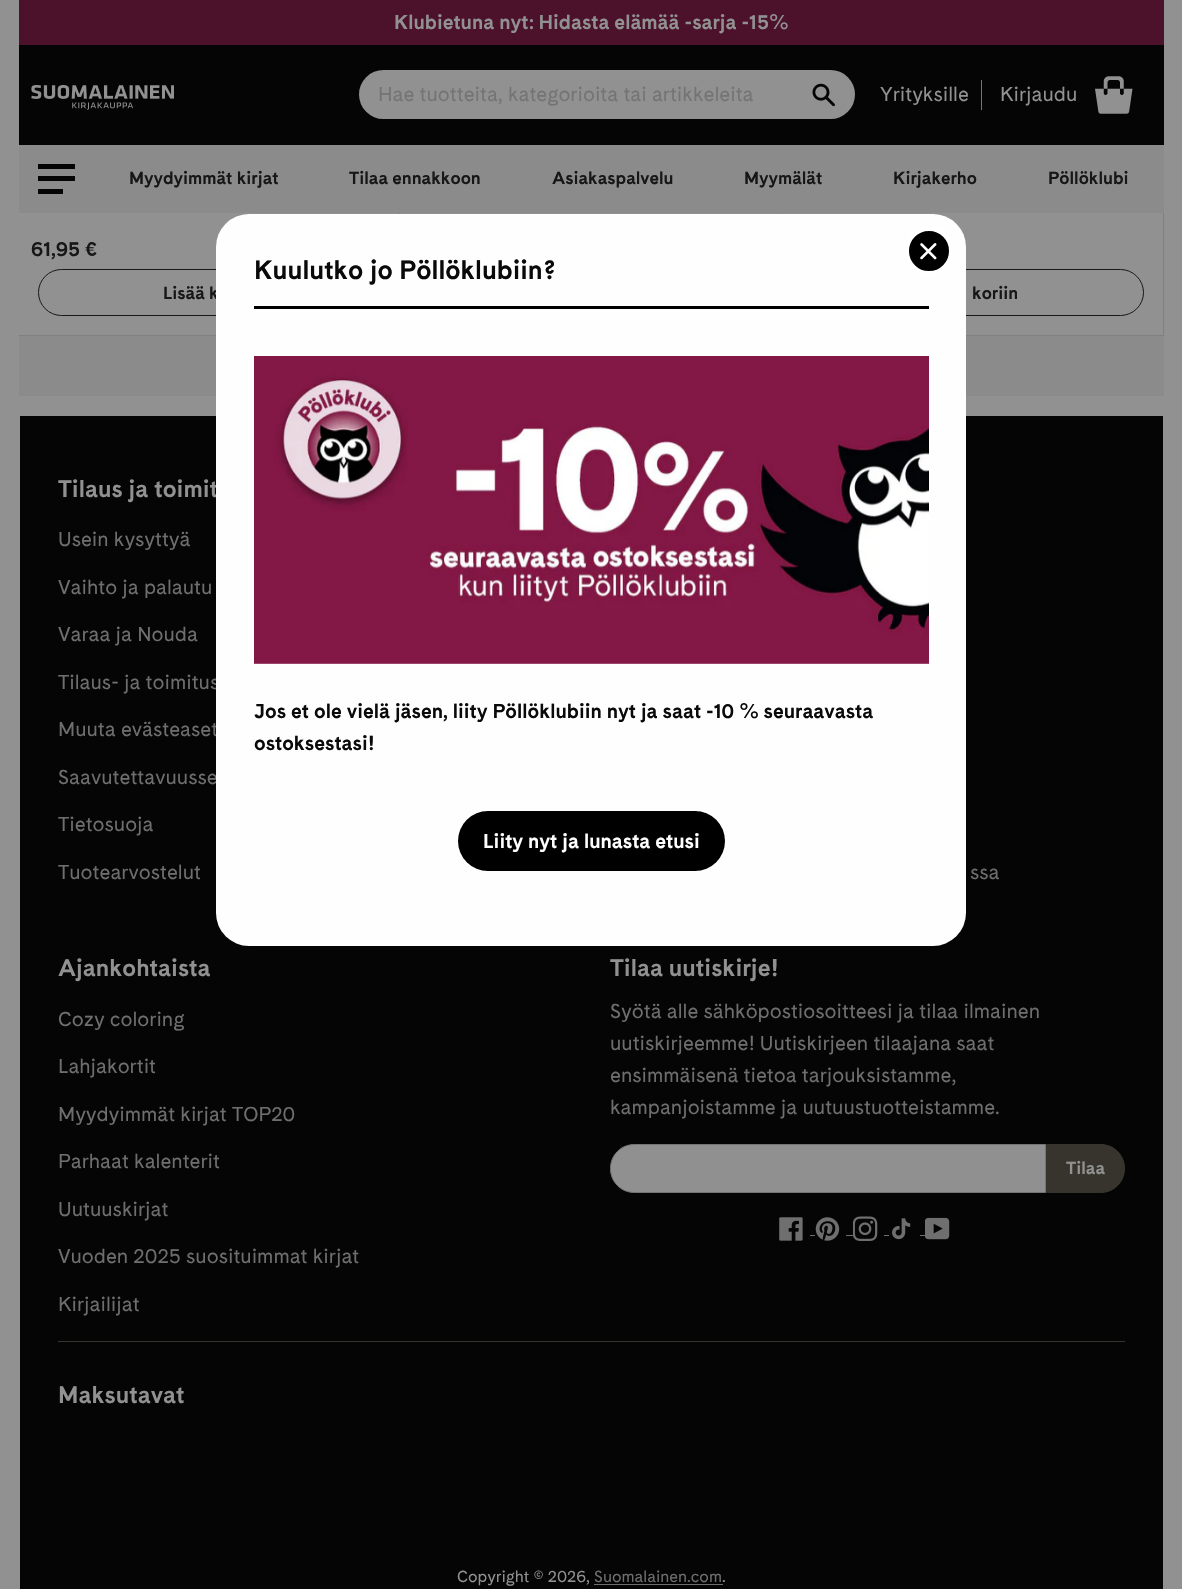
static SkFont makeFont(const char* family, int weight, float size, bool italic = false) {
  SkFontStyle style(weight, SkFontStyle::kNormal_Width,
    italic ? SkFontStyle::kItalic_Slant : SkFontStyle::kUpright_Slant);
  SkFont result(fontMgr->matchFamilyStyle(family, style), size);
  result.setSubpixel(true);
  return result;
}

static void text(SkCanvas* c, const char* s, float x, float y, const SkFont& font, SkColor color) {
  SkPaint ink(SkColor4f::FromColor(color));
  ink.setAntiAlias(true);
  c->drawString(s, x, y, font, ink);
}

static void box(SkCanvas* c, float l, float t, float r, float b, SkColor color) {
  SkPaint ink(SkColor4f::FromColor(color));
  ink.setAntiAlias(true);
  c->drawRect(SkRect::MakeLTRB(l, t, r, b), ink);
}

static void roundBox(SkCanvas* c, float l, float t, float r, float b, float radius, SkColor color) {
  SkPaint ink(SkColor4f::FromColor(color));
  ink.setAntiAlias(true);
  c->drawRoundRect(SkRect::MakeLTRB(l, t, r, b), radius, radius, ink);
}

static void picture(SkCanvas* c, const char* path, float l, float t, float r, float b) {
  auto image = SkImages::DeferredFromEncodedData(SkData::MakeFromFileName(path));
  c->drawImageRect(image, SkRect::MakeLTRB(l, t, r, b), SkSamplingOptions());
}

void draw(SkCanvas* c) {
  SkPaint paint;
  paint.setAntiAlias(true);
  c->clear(0xff919191);
  box(c, 19, 0, 1164, 45, 0xff4c112b);
  SkFont face1 = makeFont("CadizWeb", 700, 20);
  text(c, "Klubietuna nyt: Hidasta elämää -sarja -15%", 394, 29, face1, 0xff919191);
  box(c, 19, 45, 1164, 145, 0xff050505);
  picture(c, "img_01.png", 31, 85, 174, 110);
  roundBox(c, 359, 70, 855, 119, 24.5f, 0xff919191);
  SkFont face2 = makeFont("CadizWeb", 400, 20);
  text(c, "Hae tuotteita, kategorioita tai artikkeleita", 378, 101, face2, 0xff747474);
  picture(c, "img_02.png", 812, 83, 835, 107);
  box(c, 981, 80, 982, 110, 0xff757575);
  text(c, "Yrityksille", 880, 101, face2, 0xff919191);
  text(c, "Kirjaudu", 1000, 101, face2, 0xff919191);
  picture(c, "img_03.png", 1095, 76, 1133, 114);
  box(c, 19, 145, 1164, 213, 0xff8b8b8b);
  box(c, 38, 164, 75, 169, 0xff050505);
  box(c, 38, 176, 75, 181, 0xff050505);
  box(c, 38, 189, 63, 194, 0xff050505);
  SkFont face3 = makeFont("CadizWeb", 700, 17.5f);
  text(c, "Myydyimmät kirjat", 129, 184, face3, 0xff171717);
  text(c, "Tilaa ennakkoon", 349, 184, face3, 0xff171717);
  text(c, "Asiakaspalvelu", 552, 184, face3, 0xff171717);
  text(c, "Myymälät", 744, 184, face3, 0xff171717);
  text(c, "Kirjakerho", 893, 184, face3, 0xff171717);
  text(c, "Pöllöklubi", 1048, 184, face3, 0xff171717);
  box(c, 19, 335, 1164, 336, 0xff808080);
  box(c, 781, 213, 782, 214, 0xff808080);
  box(c, 399, 213, 400, 214, 0xff808080);
  text(c, "61,95 €", 31, 256, face1, 0xff171717);
  paint.setStyle(SkPaint::kStroke_Style);
  paint.setStrokeWidth(1);
  paint.setColor(0xff171717);
  c->drawRoundRect(SkRect::MakeLTRB(38.5f, 269.5f, 379.5f, 315.5f), 23, 23, paint);
  text(c, "Lisää k", 163, 299, face3, 0xff171717);
  box(c, 1163, 213, 1164, 336, 0xff808080);
  c->drawRoundRect(SkRect::MakeLTRB(801.5f, 269.5f, 1143.5f, 315.5f), 23, 23, paint);
  text(c, "koriin", 972, 299, face3, 0xff171717);
  box(c, 19, 336, 1164, 396, 0xff8b8b8b);
  box(c, 20, 416, 1163, 1589, 0xff050505);
  SkFont face4 = makeFont("CadizWeb", 700, 23.75f);
  text(c, "Tilaus ja toimit", 58, 497, face4, 0xff919191);
  text(c, "Usein kysyttyä", 58, 546, face2, 0xff6e6e6e);
  text(c, "Vaihto ja palautu", 58, 594, face2, 0xff6e6e6e);
  text(c, "Varaa ja Nouda", 58, 641, face2, 0xff6e6e6e);
  text(c, "Tilaus- ja toimitus", 58, 689, face2, 0xff6e6e6e);
  text(c, "Muuta evästeaset", 58, 736, face2, 0xff6e6e6e);
  text(c, "Saavutettavuusse", 58, 784, face2, 0xff6e6e6e);
  text(c, "Tietosuoja", 58, 831, face2, 0xff6e6e6e);
  text(c, "Tuotearvostelut", 58, 879, face2, 0xff6e6e6e);
  text(c, "ssa", 970, 879, face2, 0xff6e6e6e);
  text(c, "Ajankohtaista", 58, 976, face4, 0xff919191);
  text(c, "Cozy coloring", 58, 1026, face2, 0xff6e6e6e);
  text(c, "Lahjakortit", 58, 1073, face2, 0xff6e6e6e);
  text(c, "Myydyimmät kirjat TOP20", 58, 1121, face2, 0xff6e6e6e);
  text(c, "Parhaat kalenterit", 58, 1168, face2, 0xff6e6e6e);
  text(c, "Uutuuskirjat", 58, 1216, face2, 0xff6e6e6e);
  text(c, "Vuoden 2025 suosituimmat kirjat", 58, 1263, face2, 0xff6e6e6e);
  text(c, "Kirjailijat", 58, 1311, face2, 0xff6e6e6e);
  text(c, "Tilaa uutiskirje!", 610, 976, face4, 0xff919191);
  text(c, "Syötä alle sähköpostiosoitteesi ja tilaa ilmainen", 610, 1018, face2, 0xff6e6e6e);
  text(c, "uutiskirjeemme! Uutiskirjeen tilaajana saat", 610, 1050, face2, 0xff6e6e6e);
  text(c, "ensimmäisenä tietoa tarjouksistamme,", 610, 1082, face2, 0xff6e6e6e);
  text(c, "kampanjoistamme ja uutuustuotteistamme.", 610, 1114, face2, 0xff6e6e6e);
  paint.setStyle(SkPaint::kFill_Style);
  paint.setColor(0xff909090);
  c->drawPath(SkPathBuilder().moveTo(634.5f, 1144.5f).lineTo(1045.5f, 1144.5f).lineTo(1045.5f, 1192.5f).lineTo(634.5f, 1192.5f).cubicTo(621, 1192.5f, 610.5f, 1182, 610.5f, 1168.5f).cubicTo(610.5f, 1155, 621, 1144.5f, 634.5f, 1144.5f).close().detach(), paint);
  paint.setStyle(SkPaint::kStroke_Style);
  paint.setColor(0xff747474);
  c->drawPath(SkPathBuilder().moveTo(634.5f, 1144.5f).lineTo(1045.5f, 1144.5f).lineTo(1045.5f, 1192.5f).lineTo(634.5f, 1192.5f).cubicTo(621, 1192.5f, 610.5f, 1182, 610.5f, 1168.5f).cubicTo(610.5f, 1155, 621, 1144.5f, 634.5f, 1144.5f).close().detach(), paint);
  paint.setStyle(SkPaint::kFill_Style);
  paint.setColor(0xff36342d);
  c->drawPath(SkPathBuilder().moveTo(1046.5f, 1144.5f).lineTo(1100.5f, 1144.5f).cubicTo(1114, 1144.5f, 1124.5f, 1155, 1124.5f, 1168.5f).cubicTo(1124.5f, 1182, 1114, 1192.5f, 1100.5f, 1192.5f).lineTo(1046.5f, 1192.5f).close().detach(), paint);
  paint.setStyle(SkPaint::kStroke_Style);
  c->drawPath(SkPathBuilder().moveTo(1046.5f, 1144.5f).lineTo(1100.5f, 1144.5f).cubicTo(1114, 1144.5f, 1124.5f, 1155, 1124.5f, 1168.5f).cubicTo(1124.5f, 1182, 1114, 1192.5f, 1100.5f, 1192.5f).lineTo(1046.5f, 1192.5f).close().detach(), paint);
  text(c, "Tilaa", 1066, 1174, face3, 0xff919191);
  picture(c, "img_04.png", 779, 1217, 803, 1241);
  box(c, 810, 1235, 815, 1236, 0xff6e6e6e);
  picture(c, "img_05.png", 815, 1217, 840, 1241);
  box(c, 846, 1235, 853, 1236, 0xff6e6e6e);
  picture(c, "img_06.png", 853, 1216, 878, 1241);
  box(c, 884, 1235, 889, 1236, 0xff6e6e6e);
  picture(c, "img_07.png", 892, 1218, 911, 1240);
  box(c, 920, 1235, 925, 1236, 0xff6e6e6e);
  picture(c, "img_08.png", 925, 1217, 950, 1240);
  box(c, 58, 1341, 1125, 1342, 0xff36342d);
  text(c, "Maksutavat", 58, 1403, face4, 0xff919191);
  SkFont face5 = makeFont("CadizWeb", 400, 16);
  text(c, "Copyright © 2026,", 457, 1582, face5, 0xff919191);
  text(c, "Suomalainen.com", 594, 1582, face5, 0xff6e6e6e);
  text(c, ".", 722, 1582, face5, 0xff919191);
  box(c, 594, 1584, 723, 1585, 0xff6e6e6e);
  roundBox(c, 216, 214, 966, 946, 33, 0xfffefefe);
  box(c, 254, 306, 929, 309, 0xff000000);
  SkFont face6 = makeFont("CadizWeb", 700, 26.25f);
  text(c, "Kuulutko jo Pöllöklubiin?", 254, 279, face6, 0xff0a0a0a);
  paint.setStyle(SkPaint::kFill_Style);
  paint.setColor(0xff000000);
  c->drawCircle(929, 251, 22.5f, paint);
  paint.setStyle(SkPaint::kStroke_Style);
  paint.setStrokeWidth(5);
  paint.setColor(0xffffffff);
  c->drawCircle(929, 251, 22.5f, paint);
  picture(c, "img_09.png", 920, 243, 937, 260);
  picture(c, "img_10.png", 254, 356, 929, 664);
  text(c, "Jos et ole vielä jäsen, liity Pöllöklubiin nyt ja saat -10 % seuraavasta", 254, 718, face1, 0xff0a0a0a);
  text(c, "ostoksestasi!", 254, 750, face1, 0xff0a0a0a);
  roundBox(c, 458, 811, 725, 871, 30, 0xff000000);
  text(c, "Liity nyt ja lunasta etusi", 483, 848, face1, 0xffffffff);
}
